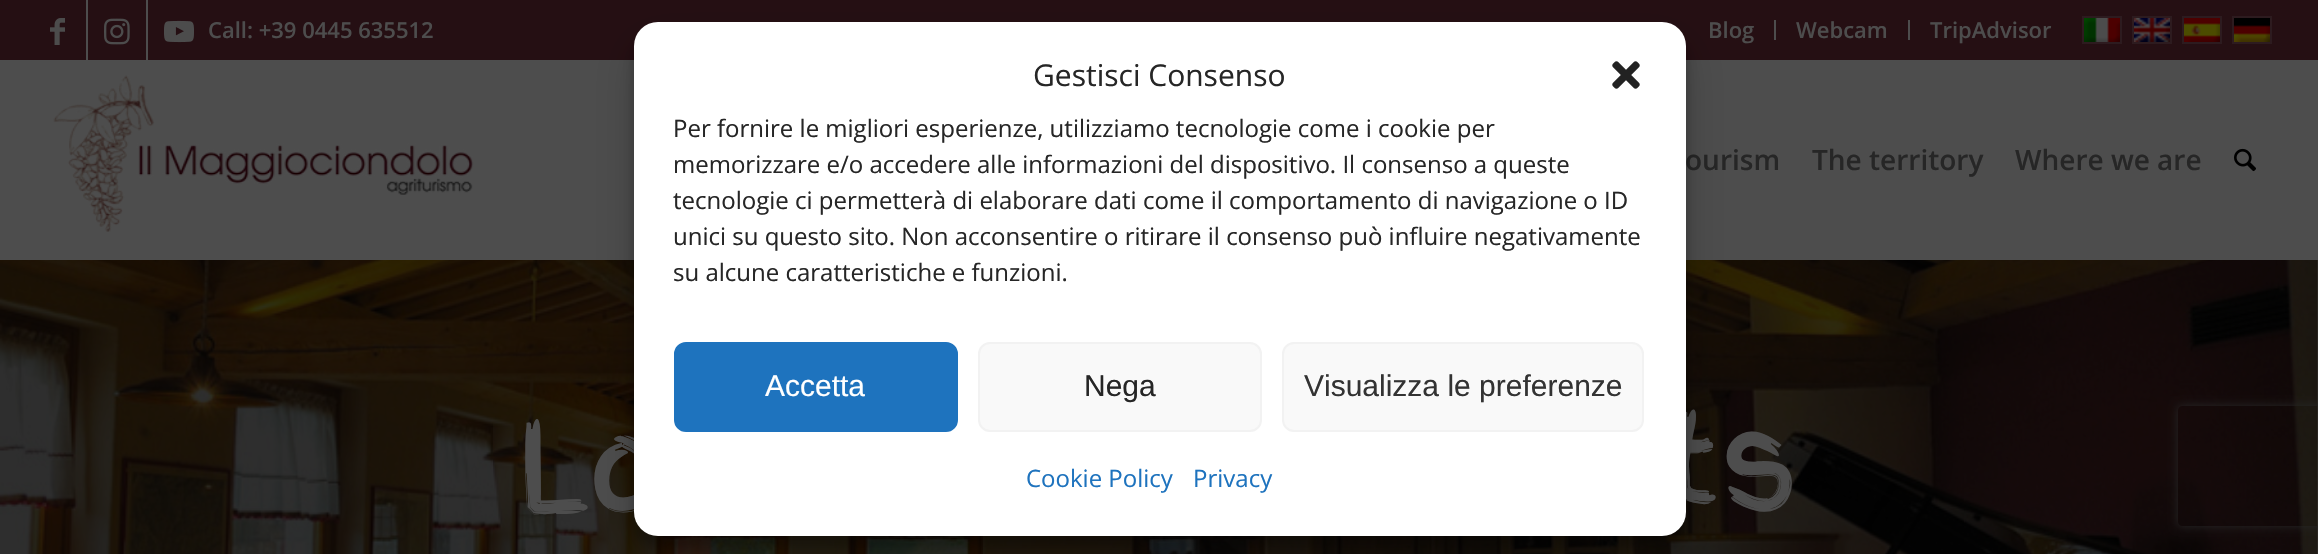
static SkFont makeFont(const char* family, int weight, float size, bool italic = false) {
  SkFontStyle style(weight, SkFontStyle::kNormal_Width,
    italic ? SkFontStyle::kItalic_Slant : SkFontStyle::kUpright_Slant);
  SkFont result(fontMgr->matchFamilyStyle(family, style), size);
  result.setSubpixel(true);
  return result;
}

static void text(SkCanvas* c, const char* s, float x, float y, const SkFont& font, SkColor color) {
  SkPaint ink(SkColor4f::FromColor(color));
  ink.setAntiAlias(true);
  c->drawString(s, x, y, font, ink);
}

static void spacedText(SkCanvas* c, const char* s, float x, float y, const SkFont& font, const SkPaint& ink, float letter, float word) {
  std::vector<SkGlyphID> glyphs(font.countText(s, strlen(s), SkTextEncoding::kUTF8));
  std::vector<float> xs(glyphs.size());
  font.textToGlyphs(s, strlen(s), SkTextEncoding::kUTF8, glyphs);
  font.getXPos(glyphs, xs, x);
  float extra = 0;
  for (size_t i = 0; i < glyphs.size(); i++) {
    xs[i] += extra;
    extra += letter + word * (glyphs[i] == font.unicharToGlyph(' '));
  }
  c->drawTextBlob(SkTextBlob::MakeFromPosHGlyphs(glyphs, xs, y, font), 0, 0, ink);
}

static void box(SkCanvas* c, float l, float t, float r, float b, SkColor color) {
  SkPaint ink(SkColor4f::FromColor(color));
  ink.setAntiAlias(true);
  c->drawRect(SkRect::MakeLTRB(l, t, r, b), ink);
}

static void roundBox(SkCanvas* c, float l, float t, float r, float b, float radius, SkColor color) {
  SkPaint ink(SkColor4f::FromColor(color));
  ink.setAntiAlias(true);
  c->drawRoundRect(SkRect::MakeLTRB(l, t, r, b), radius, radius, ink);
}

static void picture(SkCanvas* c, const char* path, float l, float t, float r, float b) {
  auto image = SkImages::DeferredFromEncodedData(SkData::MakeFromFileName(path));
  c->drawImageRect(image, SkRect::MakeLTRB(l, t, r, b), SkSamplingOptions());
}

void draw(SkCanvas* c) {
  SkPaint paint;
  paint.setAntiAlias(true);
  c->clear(0xff4d4d4d);
  box(c, 0, 0, 2318, 60, 0xff250f13);
  box(c, 86, 0, 88, 60, 0xff4d4d4d);
  picture(c, "img_01.png", 50, 18, 65, 45);
  box(c, 146, 0, 148, 60, 0xff4d4d4d);
  picture(c, "img_02.png", 104, 18, 130, 45);
  picture(c, "img_03.png", 164, 20, 194, 43);
  SkFont face1 = makeFont("Open Sans", 600, 22);
  text(c, "Call: +39 0445 635512", 208, 38, face1, 0xff4d4d4d);
  box(c, 1774, 20, 1776, 40, 0xff4d4d4d);
  text(c, "Blog", 1708, 38, face1, 0xff4d4d4d);
  box(c, 1908, 20, 1910, 40, 0xff4d4d4d);
  text(c, "Webcam", 1796, 38, face1, 0xff4d4d4d);
  text(c, "TripAdvisor", 1930, 38, face1, 0xff4d4d4d);
  paint.setStyle(SkPaint::kStroke_Style);
  paint.setStrokeWidth(2);
  paint.setColor(0xff2d1b1f);
  c->drawRect(SkRect::MakeLTRB(2083, 17, 2121, 43), paint);
  picture(c, "img_04.png", 2084, 18, 2120, 42);
  c->drawRect(SkRect::MakeLTRB(2133, 17, 2171, 43), paint);
  picture(c, "img_05.png", 2134, 18, 2170, 42);
  c->drawRect(SkRect::MakeLTRB(2183, 17, 2221, 43), paint);
  picture(c, "img_06.png", 2184, 18, 2220, 42);
  c->drawRect(SkRect::MakeLTRB(2233, 17, 2271, 43), paint);
  picture(c, "img_07.png", 2234, 18, 2270, 42);
  picture(c, "img_08.png", 53, 75, 474, 232);
  SkFont face2 = makeFont("Open Sans", 600, 28);
  text(c, "ourism", 1685, 170, face2, 0xff262626);
  text(c, "The territory", 1812, 170, face2, 0xff262626);
  text(c, "Where we are", 2015, 170, face2, 0xff262626);
  picture(c, "img_09.png", 2234, 148, 2256, 172);
  picture(c, "img_10.png", 0, 260, 2318, 554);
  SkFont face3 = makeFont("Finger Paint", 400, 120);
  paint.setStyle(SkPaint::kFill_Style);
  paint.setColor(0xff4d4d4d);
  spacedText(c, "Lo", 518, 508, face3, paint, 2, 0);
  spacedText(c, "ts", 1662, 508, face3, paint, 2, 0);
  paint.setColor(0x3b000000);
  paint.setMaskFilter(SkMaskFilter::MakeBlur(kNormal_SkBlurStyle, 6));
  c->drawRoundRect(SkRect::MakeLTRB(634, 34, 1686, 548), 24, 24, paint);
  paint.setMaskFilter(nullptr);
  paint.setColor(0x30000000);
  paint.setMaskFilter(SkMaskFilter::MakeBlur(kNormal_SkBlurStyle, 20));
  c->drawRoundRect(SkRect::MakeLTRB(634, 42, 1686, 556), 24, 24, paint);
  paint.setMaskFilter(nullptr);
  roundBox(c, 634, 22, 1686, 536, 24, 0xffffffff);
  SkFont face4 = makeFont("Open Sans", 400, 30);
  text(c, "Gestisci Consenso", 1033, 86, face4, 0xff262626);
  picture(c, "img_11.png", 1612, 61, 1640, 89);
  SkFont face5 = makeFont("Open Sans", 400, 24);
  text(c, "Per fornire le migliori esperienze, utilizziamo tecnologie come i cookie per", 673, 137, face5, 0xff262626);
  text(c, "memorizzare e/o accedere alle informazioni del dispositivo. Il consenso a queste", 673, 173, face5, 0xff262626);
  text(c, "tecnologie ci permetterà di elaborare dati come il comportamento di navigazione o ID", 673, 209, face5, 0xff262626);
  text(c, "unici su questo sito. Non acconsentire o ritirare il consenso può influire negativamente", 673, 245, face5, 0xff262626);
  text(c, "su alcune caratteristiche e funzioni.", 673, 281, face5, 0xff262626);
  paint.setColor(0xff1e73be);
  c->drawRoundRect(SkRect::MakeLTRB(675, 343, 957, 431), 11, 11, paint);
  paint.setStyle(SkPaint::kStroke_Style);
  c->drawRoundRect(SkRect::MakeLTRB(675, 343, 957, 431), 11, 11, paint);
  SkFont face6 = makeFont("Liberation Sans", 400, 30);
  text(c, "Accetta", 765, 396, face6, 0xffffffff);
  paint.setStyle(SkPaint::kFill_Style);
  paint.setColor(0xfff9f9f9);
  c->drawRoundRect(SkRect::MakeLTRB(979, 343, 1261, 431), 11, 11, paint);
  paint.setStyle(SkPaint::kStroke_Style);
  paint.setColor(0xfff2f2f2);
  c->drawRoundRect(SkRect::MakeLTRB(979, 343, 1261, 431), 11, 11, paint);
  text(c, "Nega", 1084, 396, face6, 0xff262626);
  paint.setStyle(SkPaint::kFill_Style);
  paint.setColor(0xfff9f9f9);
  c->drawRoundRect(SkRect::MakeLTRB(1283, 343, 1643, 431), 11, 11, paint);
  paint.setStyle(SkPaint::kStroke_Style);
  paint.setColor(0xfff2f2f2);
  c->drawRoundRect(SkRect::MakeLTRB(1283, 343, 1643, 431), 11, 11, paint);
  text(c, "Visualizza le preferenze", 1304, 396, face6, 0xff333333);
  text(c, "Cookie Policy", 1026, 487, face5, 0xff1e73be);
  text(c, "Privacy", 1193, 487, face5, 0xff1e73be);
  c->save();
  c->clipPath(SkPathBuilder(SkPathFillType::kEvenOdd).moveTo(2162, 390).lineTo(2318, 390).lineTo(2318, 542).lineTo(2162, 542).close().moveTo(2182, 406).lineTo(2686, 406).cubicTo(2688, 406, 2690, 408, 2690, 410).lineTo(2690, 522).cubicTo(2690, 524, 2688, 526, 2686, 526).lineTo(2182, 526).cubicTo(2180, 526, 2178, 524, 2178, 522).lineTo(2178, 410).cubicTo(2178, 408, 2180, 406, 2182, 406).close().detach(), true);
  paint.setStyle(SkPaint::kFill_Style);
  paint.setColor(0xff262626);
  paint.setMaskFilter(SkMaskFilter::MakeBlur(kNormal_SkBlurStyle, 5));
  c->drawRoundRect(SkRect::MakeLTRB(2178, 406, 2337, 526), 4, 4, paint);
  paint.setMaskFilter(nullptr);
  c->restore();
}
